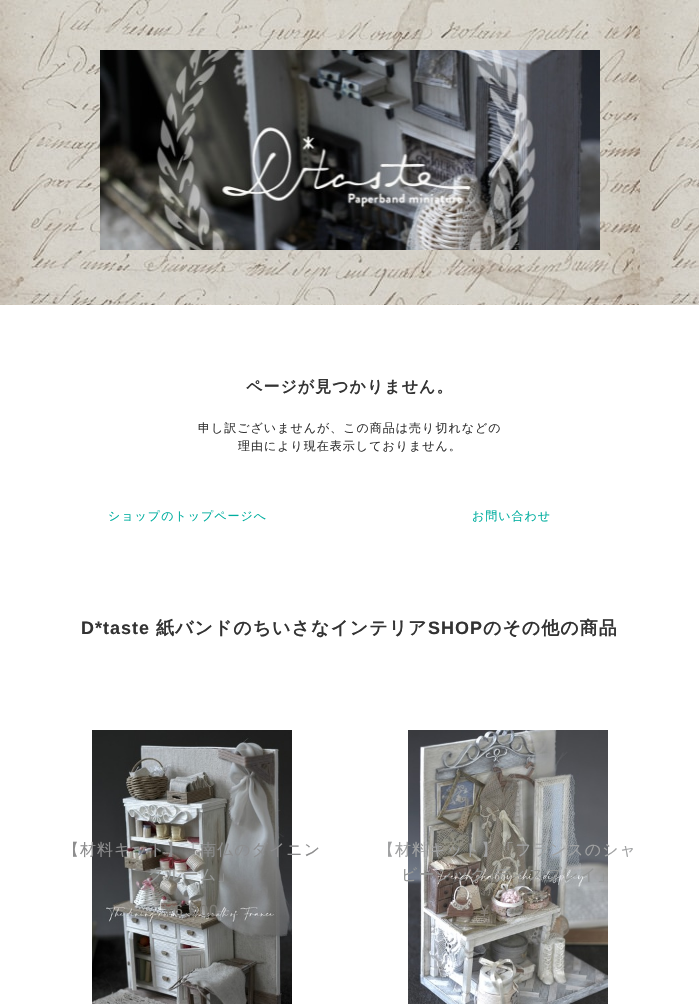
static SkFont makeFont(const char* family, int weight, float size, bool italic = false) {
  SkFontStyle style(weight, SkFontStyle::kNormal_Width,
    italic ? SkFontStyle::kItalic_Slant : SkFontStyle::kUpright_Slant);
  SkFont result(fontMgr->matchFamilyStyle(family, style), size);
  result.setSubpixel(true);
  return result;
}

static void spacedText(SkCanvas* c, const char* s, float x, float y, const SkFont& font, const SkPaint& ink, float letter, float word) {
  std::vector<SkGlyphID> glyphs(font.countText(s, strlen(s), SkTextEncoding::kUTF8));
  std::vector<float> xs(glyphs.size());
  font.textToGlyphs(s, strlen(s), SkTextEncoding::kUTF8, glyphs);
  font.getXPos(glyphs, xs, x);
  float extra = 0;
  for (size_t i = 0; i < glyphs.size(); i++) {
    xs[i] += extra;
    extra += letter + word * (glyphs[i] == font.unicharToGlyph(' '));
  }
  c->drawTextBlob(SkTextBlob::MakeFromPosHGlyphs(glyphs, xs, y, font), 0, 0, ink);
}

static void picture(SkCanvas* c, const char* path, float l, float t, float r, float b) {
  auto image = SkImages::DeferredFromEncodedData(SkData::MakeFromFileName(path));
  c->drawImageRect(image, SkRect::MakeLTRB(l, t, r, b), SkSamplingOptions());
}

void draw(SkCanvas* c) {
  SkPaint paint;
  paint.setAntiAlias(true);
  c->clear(0xffffffff);
  picture(c, "img_01.png", 0, 0, 699, 305);
  picture(c, "img_02.png", 100, 50, 600, 250);
  SkFont face1 = makeFont("WenQuanYi Zen Hei", 700, 16);
  paint.setColor(0xff333333);
  spacedText(c, "ページが見つかりません。", 246, 392, face1, paint, 1, 0);
  SkFont face2 = makeFont("WenQuanYi Zen Hei", 500, 12);
  spacedText(c, "申し訳ございませんが、この商品は売り切れなどの", 198, 432, face2, paint, 1, 0);
  spacedText(c, "理由により現在表示しておりません。", 238, 450, face2, paint, 1, 0);
  paint.setColor(0xff00ae9f);
  spacedText(c, "ショップのトップページへ", 108, 520, face2, paint, 1, 0);
  spacedText(c, "お問い合わせ", 472, 520, face2, paint, 1, 0);
  SkFont face3 = makeFont("Liberation Sans", 700, 18);
  paint.setColor(0xff333333);
  spacedText(c, "D*taste", 81, 634, face3, paint, 1, 0);
  SkFont face4 = makeFont("WenQuanYi Zen Hei", 700, 18);
  spacedText(c, "紙バンドのちいさなインテリア", 156, 634, face4, paint, 1, 0);
  spacedText(c, "SHOP", 428, 634, face3, paint, 1, 0);
  spacedText(c, "のその他の商品", 483, 634, face4, paint, 1, 0);
  picture(c, "img_03.png", 92, 730, 292, 1004);
  SkFont face5 = makeFont("WenQuanYi Zen Hei", 500, 16);
  paint.setColor(0xff8d8d8e);
  spacedText(c, "【材料キット】「南仏のダイニン", 63, 855, face5, paint, 1, 0);
  paint.setColor(0xff949695);
  spacedText(c, "グルーム」", 148, 880, face5, paint, 1, 0);
  SkFont face6 = makeFont("Liberation Sans", 400, 16);
  paint.setColor(0xff7d7b76);
  spacedText(c, "¥6,000", 164, 916, face6, paint, 1, 0);
  picture(c, "img_04.png", 408, 730, 608, 1004);
  paint.setColor(0xffa0a1a2);
  spacedText(c, "【材料キット】「フランスのシャ", 378, 855, face5, paint, 1, 0);
  paint.setColor(0xff949695);
  spacedText(c, "ビーシック ディスプレイ」", 401, 880, face5, paint, 1, 0);
  paint.setColor(0xff878079);
  spacedText(c, "¥", 480, 916, face6, paint, 1, 0);
}
